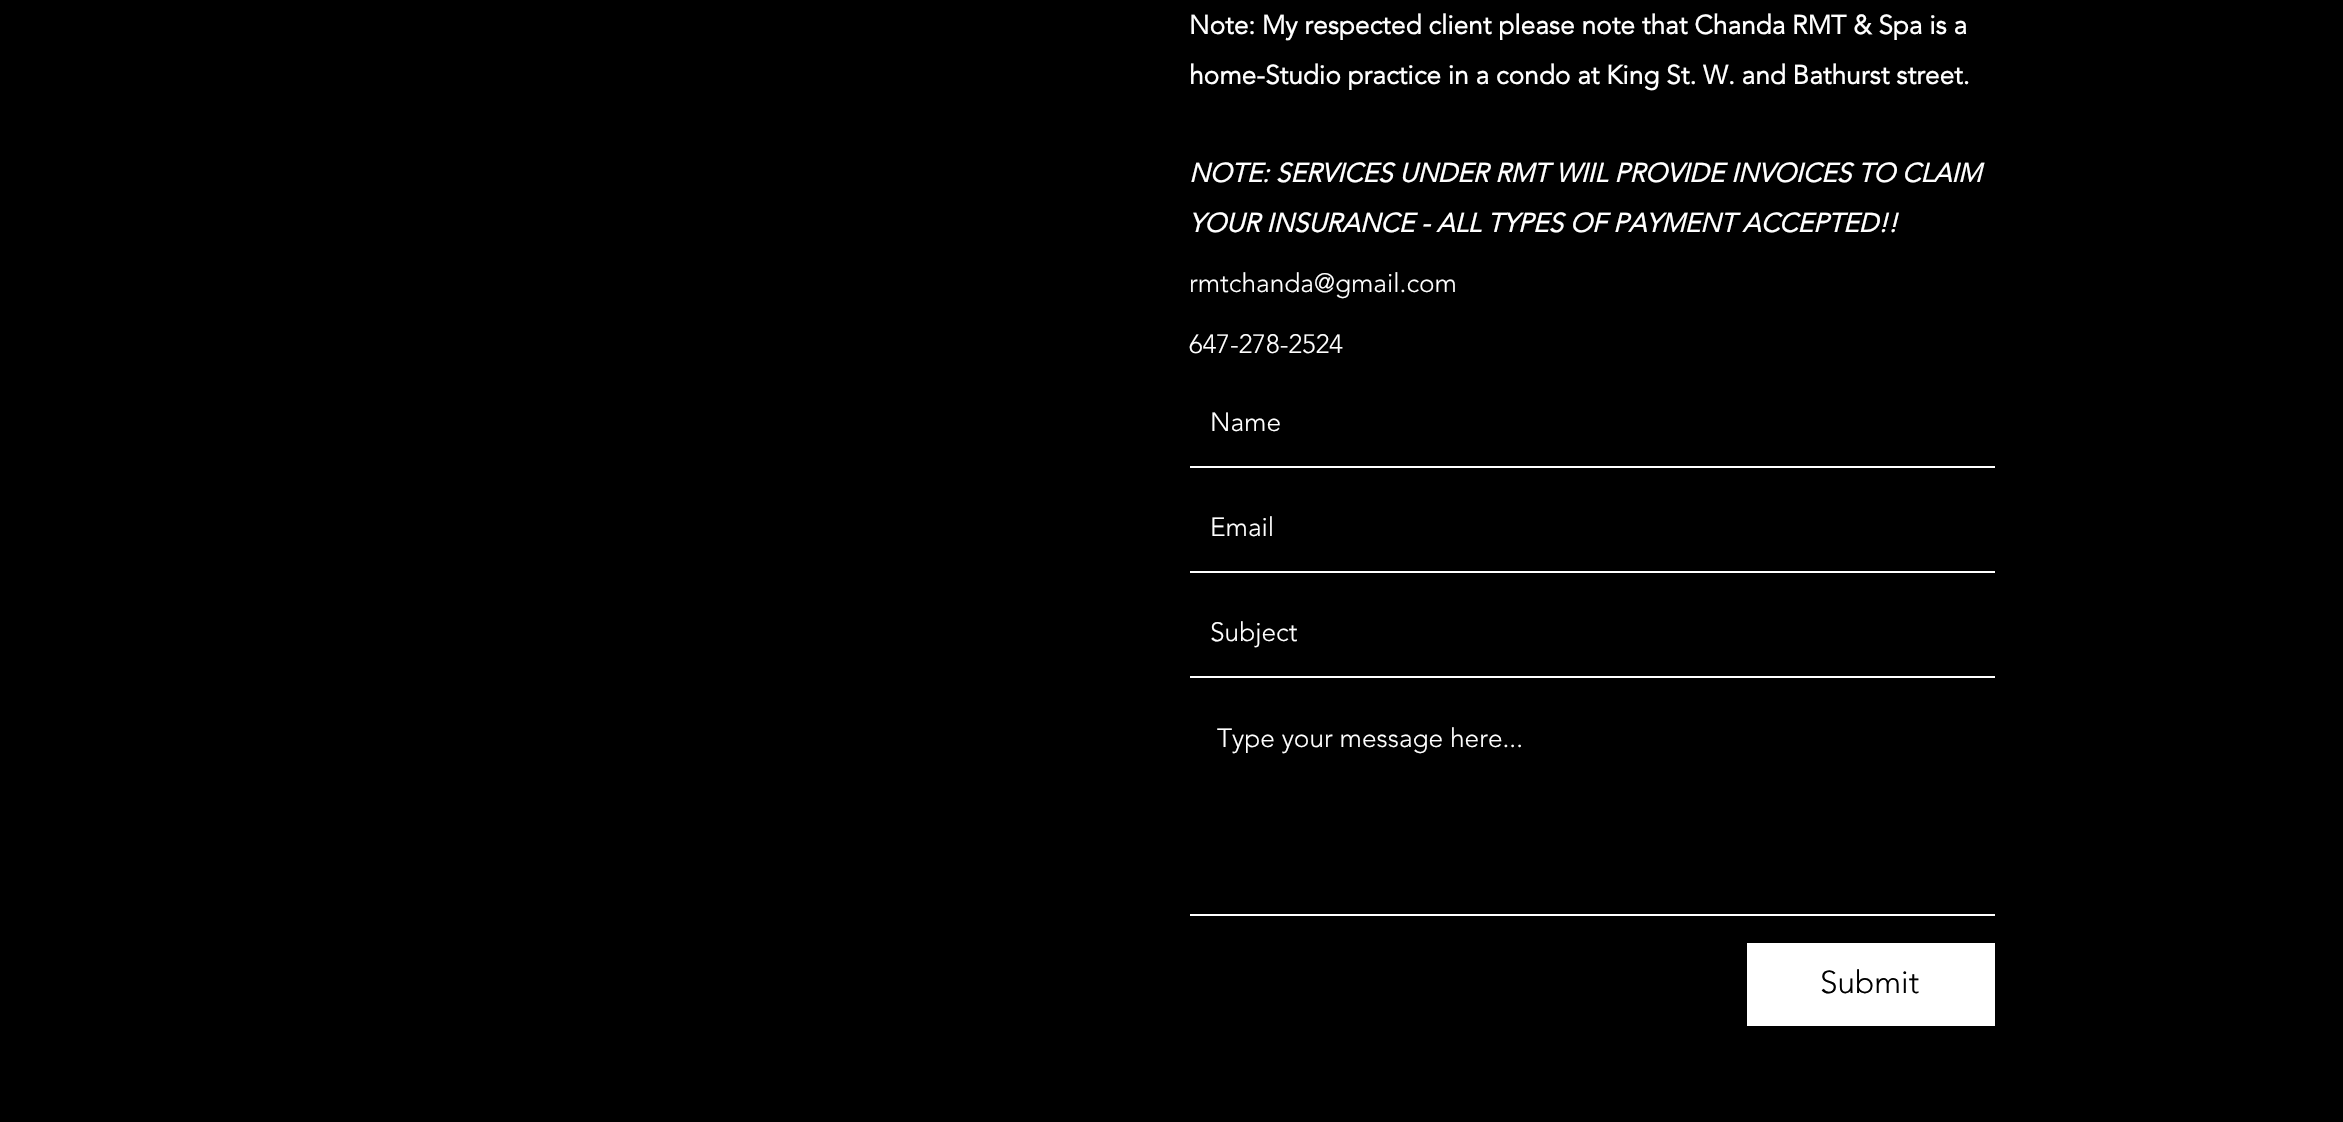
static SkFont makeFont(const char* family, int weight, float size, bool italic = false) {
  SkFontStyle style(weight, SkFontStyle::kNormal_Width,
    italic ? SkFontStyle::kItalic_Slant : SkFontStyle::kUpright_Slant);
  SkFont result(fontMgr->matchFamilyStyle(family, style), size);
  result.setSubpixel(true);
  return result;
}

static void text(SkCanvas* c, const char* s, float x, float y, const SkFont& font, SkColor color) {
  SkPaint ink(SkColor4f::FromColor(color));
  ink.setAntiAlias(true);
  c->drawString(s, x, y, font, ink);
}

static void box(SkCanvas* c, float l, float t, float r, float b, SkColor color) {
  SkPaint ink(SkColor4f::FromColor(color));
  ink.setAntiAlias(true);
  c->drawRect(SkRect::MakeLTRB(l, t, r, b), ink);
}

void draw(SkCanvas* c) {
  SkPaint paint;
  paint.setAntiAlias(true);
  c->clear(0xff000000);
  SkFont face1 = makeFont("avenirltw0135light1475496", 700, 26.25f);
  text(c, "Note: My respected client please note that Chanda RMT & Spa is a", 1189, 34, face1, 0xffffffff);
  text(c, "home-Studio practice in a condo at King St. W. and Bathurst street.", 1189, 84, face1, 0xffffffff);
  SkFont face2 = makeFont("avenirltw0135light1475496", 700, 26.25f, true);
  text(c, "NOTE: SERVICES UNDER RMT WIIL PROVIDE INVOICES TO CLAIM", 1189, 182, face2, 0xffffffff);
  text(c, "YOUR INSURANCE - ALL TYPES OF PAYMENT ACCEPTED!!", 1189, 232, face2, 0xffffffff);
  SkFont face3 = makeFont("avenirltw0135light1475496", 300, 26.25f);
  text(c, "rmtchanda@gmail.com", 1189, 292, face3, 0xffffffff);
  text(c, "647-278-2524", 1189, 353, face3, 0xffffffff);
  box(c, 1190, 466, 1995, 468, 0xffffffff);
  text(c, "Name", 1210, 431, face3, 0xffffffff);
  box(c, 1190, 571, 1995, 573, 0xffffffff);
  text(c, "Email", 1210, 536, face3, 0xffffffff);
  box(c, 1190, 676, 1995, 678, 0xffffffff);
  text(c, "Subject", 1210, 641, face3, 0xffffffff);
  box(c, 1190, 914, 1995, 916, 0xffffffff);
  text(c, "Type your message here...", 1217, 747, face3, 0xffffffff);
  box(c, 1747, 943, 1995, 1026, 0xffffffff);
  SkFont face4 = makeFont("avenirltw0135light1475496", 300, 31.5f);
  text(c, "Submit", 1820, 993, face4, 0xff000000);
}
